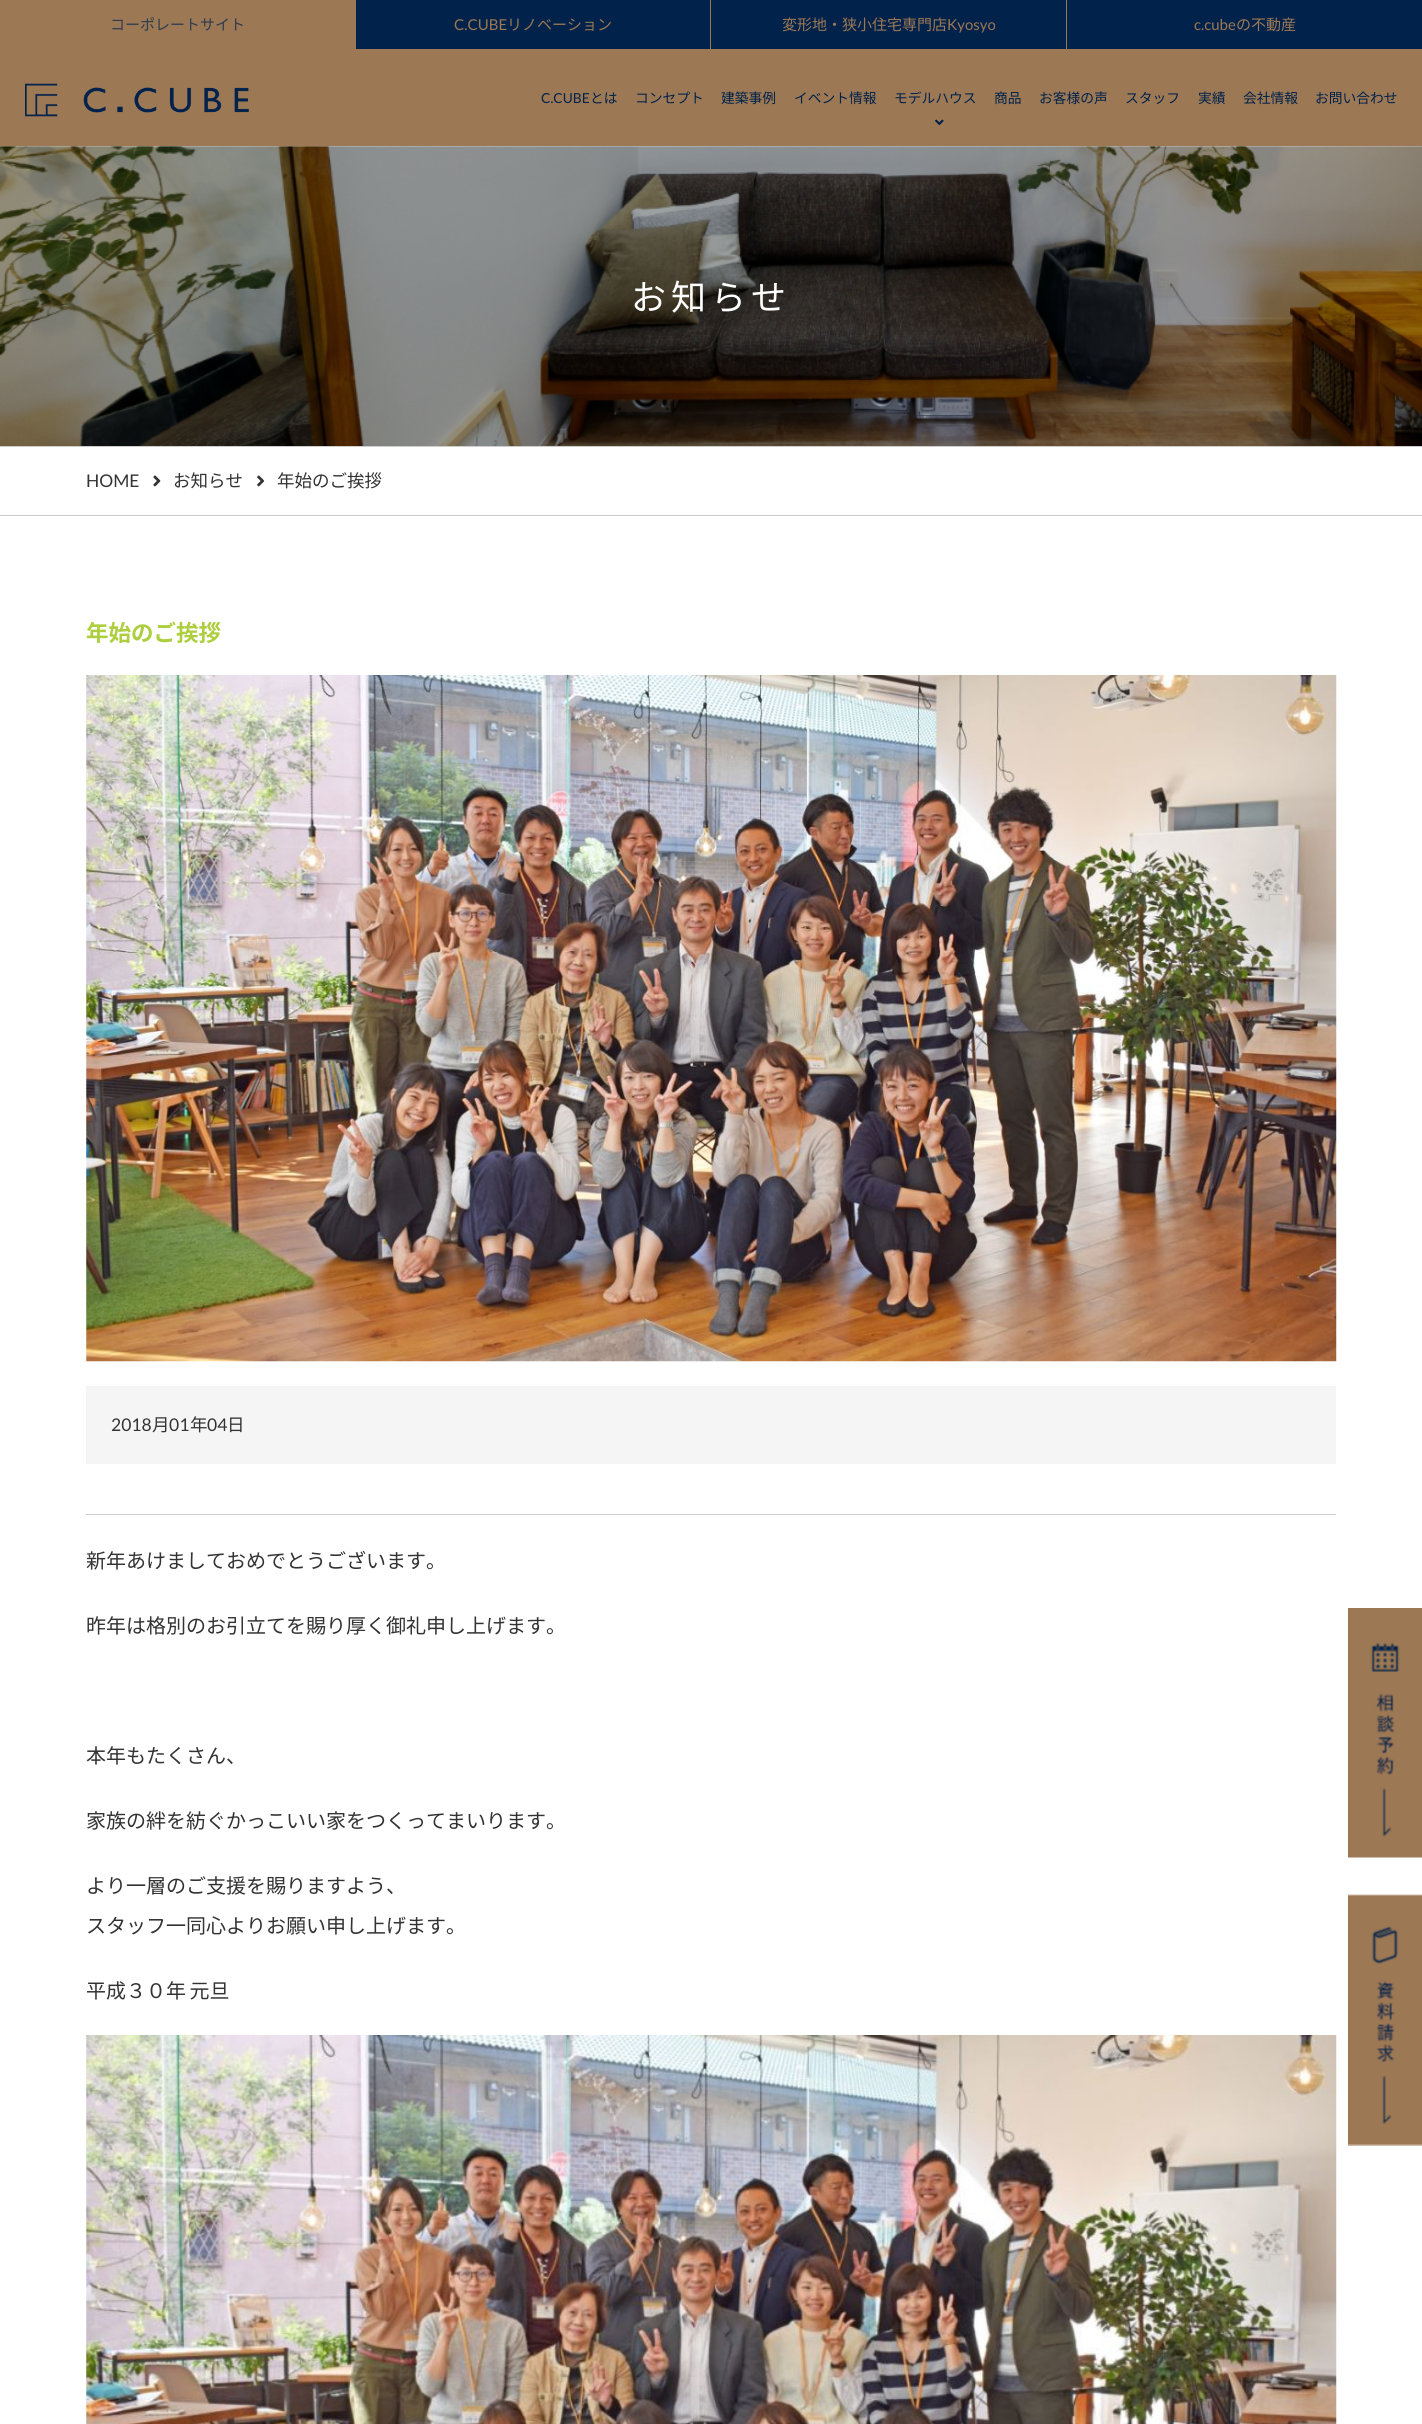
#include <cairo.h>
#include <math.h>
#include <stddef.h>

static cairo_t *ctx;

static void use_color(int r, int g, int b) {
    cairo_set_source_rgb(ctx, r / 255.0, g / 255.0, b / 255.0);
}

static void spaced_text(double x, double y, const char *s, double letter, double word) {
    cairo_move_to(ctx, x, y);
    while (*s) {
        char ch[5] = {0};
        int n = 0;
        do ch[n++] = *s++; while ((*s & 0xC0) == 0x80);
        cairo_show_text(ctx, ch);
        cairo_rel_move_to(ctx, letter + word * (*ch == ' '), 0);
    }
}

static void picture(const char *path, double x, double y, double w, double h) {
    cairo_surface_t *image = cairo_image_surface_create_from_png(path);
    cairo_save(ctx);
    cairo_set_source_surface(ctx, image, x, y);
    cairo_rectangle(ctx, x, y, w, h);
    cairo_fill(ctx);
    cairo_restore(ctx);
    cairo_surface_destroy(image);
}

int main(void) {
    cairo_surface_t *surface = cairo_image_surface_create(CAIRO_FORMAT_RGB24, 1422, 2424);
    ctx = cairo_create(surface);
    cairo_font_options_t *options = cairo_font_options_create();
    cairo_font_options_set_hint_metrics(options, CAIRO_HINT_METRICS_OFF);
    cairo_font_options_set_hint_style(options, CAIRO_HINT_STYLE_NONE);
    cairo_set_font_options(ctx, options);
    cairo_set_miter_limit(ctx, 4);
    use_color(255, 255, 255);
    cairo_paint(ctx);
    use_color(156, 120, 84);
    cairo_rectangle(ctx, 0, 49, 1422, 97);
    cairo_fill(ctx);
    use_color(0, 34, 75);
    cairo_rectangle(ctx, 356, 0, 1066, 49);
    cairo_fill(ctx);
    use_color(156, 120, 84);
    cairo_rectangle(ctx, 0, 0, 356, 49);
    cairo_fill(ctx);
    cairo_select_font_face(ctx, "Noto Sans JP", CAIRO_FONT_SLANT_NORMAL, CAIRO_FONT_WEIGHT_NORMAL);
    cairo_set_font_size(ctx, 15);
    use_color(47, 60, 78);
    cairo_move_to(ctx, 110, 30);
    cairo_show_text(ctx, "コーポレートサイト");
    use_color(156, 120, 84);
    cairo_rectangle(ctx, 710, 0, 1, 49);
    cairo_fill(ctx);
    cairo_select_font_face(ctx, "Lato", CAIRO_FONT_SLANT_NORMAL, CAIRO_FONT_WEIGHT_NORMAL);
    cairo_move_to(ctx, 454, 30);
    cairo_show_text(ctx, "C.CUBE");
    cairo_select_font_face(ctx, "Noto Sans JP", CAIRO_FONT_SLANT_NORMAL, CAIRO_FONT_WEIGHT_NORMAL);
    cairo_move_to(ctx, 507, 30);
    cairo_show_text(ctx, "リノベーション");
    cairo_rectangle(ctx, 1066, 0, 1, 49);
    cairo_fill(ctx);
    cairo_move_to(ctx, 782, 30);
    cairo_show_text(ctx, "変形地・狭小住宅専門店");
    cairo_select_font_face(ctx, "Lato", CAIRO_FONT_SLANT_NORMAL, CAIRO_FONT_WEIGHT_NORMAL);
    cairo_move_to(ctx, 947, 30);
    cairo_show_text(ctx, "Kyosyo");
    cairo_move_to(ctx, 1194, 30);
    cairo_show_text(ctx, "c.cube");
    cairo_select_font_face(ctx, "Noto Sans JP", CAIRO_FONT_SLANT_NORMAL, CAIRO_FONT_WEIGHT_NORMAL);
    cairo_move_to(ctx, 1236, 30);
    cairo_show_text(ctx, "の不動産");
    picture("img1.png", 25, 83, 224, 34);
    cairo_select_font_face(ctx, "Lato", CAIRO_FONT_SLANT_NORMAL, CAIRO_FONT_WEIGHT_NORMAL);
    cairo_set_font_size(ctx, 13.75);
    use_color(0, 34, 75);
    cairo_move_to(ctx, 541, 103);
    cairo_show_text(ctx, "C.CUBE");
    cairo_select_font_face(ctx, "Noto Sans JP", CAIRO_FONT_SLANT_NORMAL, CAIRO_FONT_WEIGHT_NORMAL);
    cairo_move_to(ctx, 590, 103);
    cairo_show_text(ctx, "とは");
    cairo_move_to(ctx, 635, 103);
    cairo_show_text(ctx, "コンセプト");
    cairo_move_to(ctx, 721, 103);
    cairo_show_text(ctx, "建築事例");
    cairo_move_to(ctx, 794, 103);
    cairo_show_text(ctx, "イベント情報");
    cairo_move_to(ctx, 894, 103);
    cairo_show_text(ctx, "モデルハウス");
    picture("img2.png", 935, 119, 9, 7);
    cairo_move_to(ctx, 994, 103);
    cairo_show_text(ctx, "商品");
    cairo_move_to(ctx, 1039, 103);
    cairo_show_text(ctx, "お客様の声");
    cairo_move_to(ctx, 1125, 103);
    cairo_show_text(ctx, "スタッフ");
    cairo_move_to(ctx, 1198, 103);
    cairo_show_text(ctx, "実績");
    cairo_move_to(ctx, 1243, 103);
    cairo_show_text(ctx, "会社情報");
    cairo_move_to(ctx, 1315, 103);
    cairo_show_text(ctx, "お問い合わせ");
    picture("img3.png", 0, 146, 1422, 300);
    cairo_set_font_size(ctx, 35);
    use_color(255, 255, 255);
    spaced_text(631, 310, "お知らせ", 5, 0);
    use_color(204, 204, 204);
    cairo_rectangle(ctx, 0, 446, 1422, 1);
    cairo_fill(ctx);
    cairo_rectangle(ctx, 0, 515, 1422, 1);
    cairo_fill(ctx);
    cairo_select_font_face(ctx, "Lato", CAIRO_FONT_SLANT_NORMAL, CAIRO_FONT_WEIGHT_NORMAL);
    cairo_set_font_size(ctx, 17.5);
    use_color(51, 51, 51);
    cairo_move_to(ctx, 86, 487);
    cairo_show_text(ctx, "HOME");
    picture("img4.png", 153, 475, 8, 12);
    cairo_select_font_face(ctx, "Noto Sans JP", CAIRO_FONT_SLANT_NORMAL, CAIRO_FONT_WEIGHT_NORMAL);
    cairo_move_to(ctx, 173, 487);
    cairo_show_text(ctx, "お知らせ");
    picture("img5.png", 257, 475, 8, 12);
    cairo_move_to(ctx, 277, 487);
    cairo_show_text(ctx, "年始のご挨拶");
    cairo_select_font_face(ctx, "Noto Sans JP", CAIRO_FONT_SLANT_NORMAL, CAIRO_FONT_WEIGHT_BOLD);
    cairo_set_font_size(ctx, 22.5);
    use_color(173, 206, 62);
    cairo_move_to(ctx, 86, 641);
    cairo_show_text(ctx, "年始のご挨拶");
    picture("img6.png", 86, 675, 1251, 687);
    use_color(245, 245, 245);
    cairo_rectangle(ctx, 86, 1386, 1250, 78);
    cairo_fill(ctx);
    cairo_select_font_face(ctx, "Lato", CAIRO_FONT_SLANT_NORMAL, CAIRO_FONT_WEIGHT_NORMAL);
    cairo_set_font_size(ctx, 17.5);
    use_color(51, 51, 51);
    cairo_move_to(ctx, 111, 1431);
    cairo_show_text(ctx, "2018");
    cairo_select_font_face(ctx, "Noto Sans JP", CAIRO_FONT_SLANT_NORMAL, CAIRO_FONT_WEIGHT_NORMAL);
    cairo_move_to(ctx, 152, 1431);
    cairo_show_text(ctx, "月");
    cairo_select_font_face(ctx, "Lato", CAIRO_FONT_SLANT_NORMAL, CAIRO_FONT_WEIGHT_NORMAL);
    cairo_move_to(ctx, 169, 1431);
    cairo_show_text(ctx, "01");
    cairo_select_font_face(ctx, "Noto Sans JP", CAIRO_FONT_SLANT_NORMAL, CAIRO_FONT_WEIGHT_NORMAL);
    cairo_move_to(ctx, 190, 1431);
    cairo_show_text(ctx, "年");
    cairo_select_font_face(ctx, "Lato", CAIRO_FONT_SLANT_NORMAL, CAIRO_FONT_WEIGHT_NORMAL);
    cairo_move_to(ctx, 207, 1431);
    cairo_show_text(ctx, "04");
    cairo_select_font_face(ctx, "Noto Sans JP", CAIRO_FONT_SLANT_NORMAL, CAIRO_FONT_WEIGHT_NORMAL);
    cairo_move_to(ctx, 227, 1431);
    cairo_show_text(ctx, "日");
    use_color(204, 204, 204);
    cairo_rectangle(ctx, 86, 1514, 1250, 1);
    cairo_fill(ctx);
    cairo_set_font_size(ctx, 20);
    use_color(51, 51, 51);
    cairo_move_to(ctx, 86, 1568);
    cairo_show_text(ctx, "新年あけましておめでとうございます。");
    cairo_move_to(ctx, 86, 1633);
    cairo_show_text(ctx, "昨年は格別のお引立てを賜り厚く御礼申し上げます。");
    cairo_move_to(ctx, 86, 1763);
    cairo_show_text(ctx, "本年もたくさん、");
    cairo_move_to(ctx, 86, 1828);
    cairo_show_text(ctx, "家族の絆を紡ぐかっこいい家をつくってまいります。");
    cairo_move_to(ctx, 86, 1893);
    cairo_show_text(ctx, "より一層のご支援を賜りますよう、");
    cairo_move_to(ctx, 86, 1933);
    cairo_show_text(ctx, "スタッフ一同心よりお願い申し上げます。");
    spaced_text(86, 1998, "平成３０年 元旦", 0, -1);
    picture("img7.png", 86, 2035, 1251, 389);
    picture("img8.png", 1348, 1608, 74, 250);
    picture("img9.png", 1348, 1894, 74, 252);
    cairo_surface_write_to_png(surface, "result.png");
    cairo_font_options_destroy(options);
    cairo_destroy(ctx);
    cairo_surface_destroy(surface);
    return 0;
}
